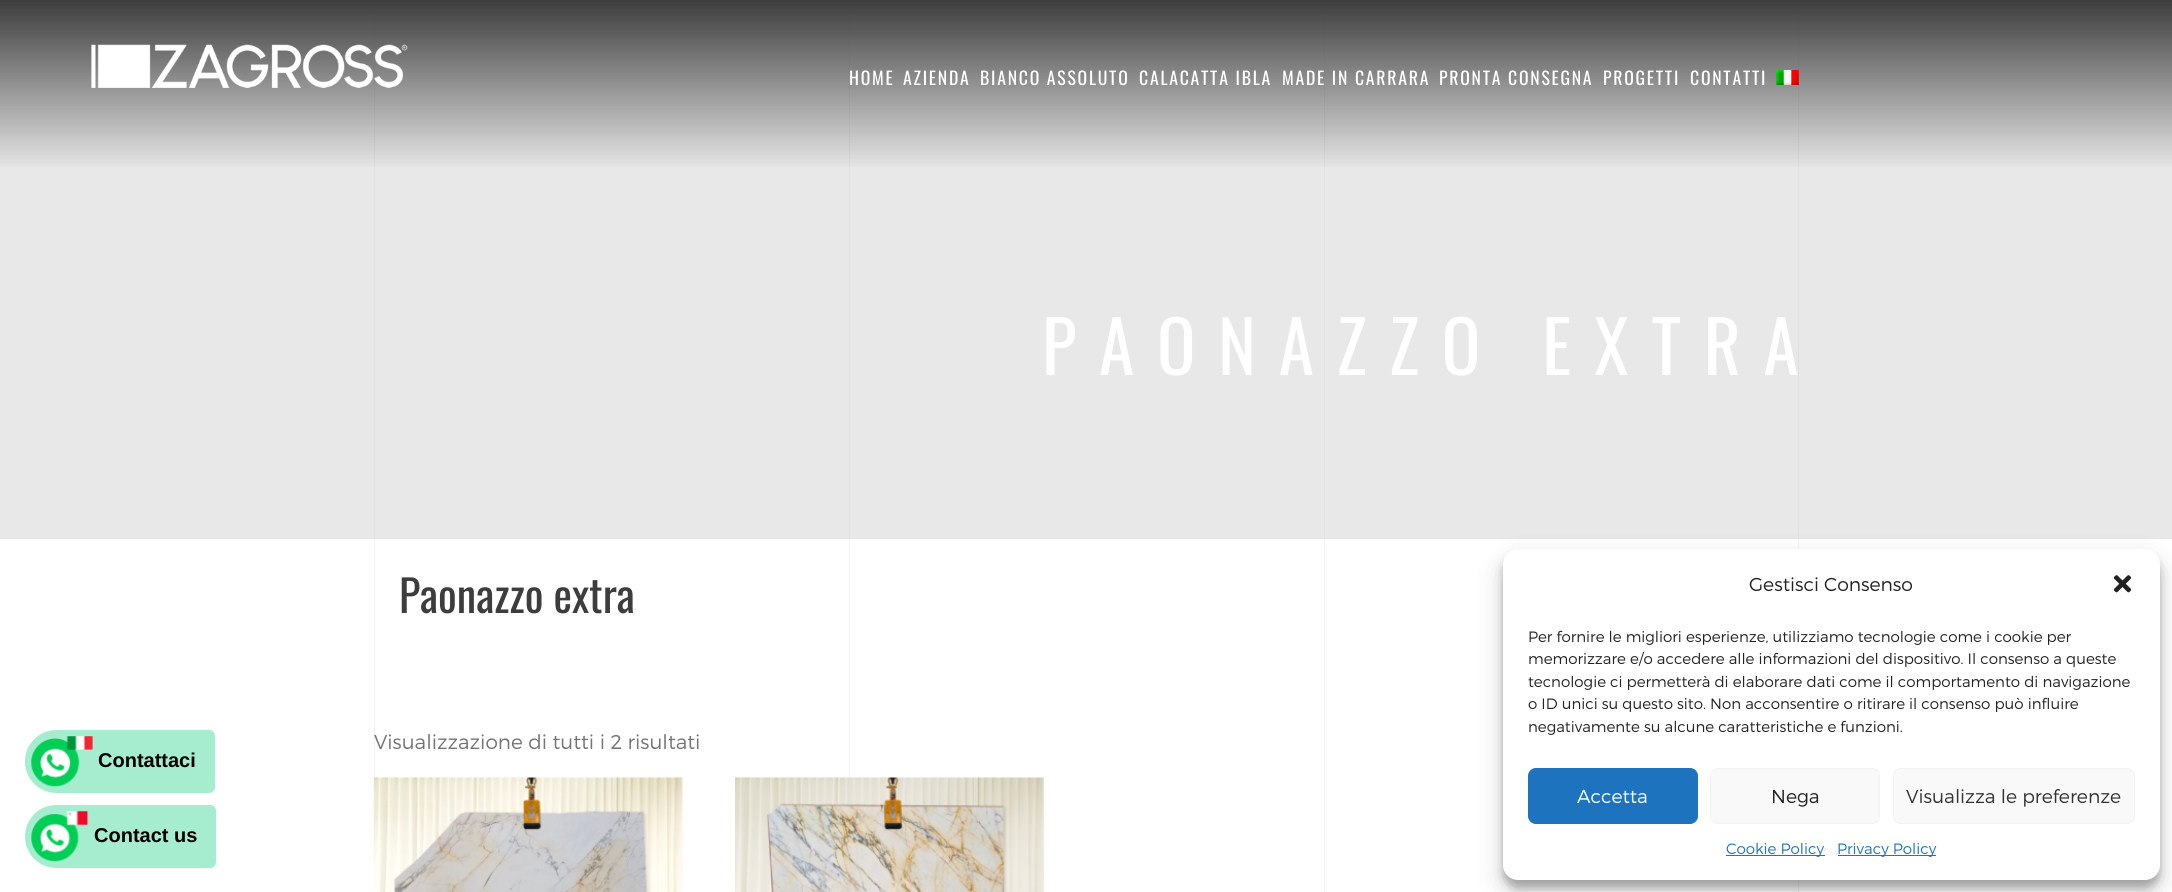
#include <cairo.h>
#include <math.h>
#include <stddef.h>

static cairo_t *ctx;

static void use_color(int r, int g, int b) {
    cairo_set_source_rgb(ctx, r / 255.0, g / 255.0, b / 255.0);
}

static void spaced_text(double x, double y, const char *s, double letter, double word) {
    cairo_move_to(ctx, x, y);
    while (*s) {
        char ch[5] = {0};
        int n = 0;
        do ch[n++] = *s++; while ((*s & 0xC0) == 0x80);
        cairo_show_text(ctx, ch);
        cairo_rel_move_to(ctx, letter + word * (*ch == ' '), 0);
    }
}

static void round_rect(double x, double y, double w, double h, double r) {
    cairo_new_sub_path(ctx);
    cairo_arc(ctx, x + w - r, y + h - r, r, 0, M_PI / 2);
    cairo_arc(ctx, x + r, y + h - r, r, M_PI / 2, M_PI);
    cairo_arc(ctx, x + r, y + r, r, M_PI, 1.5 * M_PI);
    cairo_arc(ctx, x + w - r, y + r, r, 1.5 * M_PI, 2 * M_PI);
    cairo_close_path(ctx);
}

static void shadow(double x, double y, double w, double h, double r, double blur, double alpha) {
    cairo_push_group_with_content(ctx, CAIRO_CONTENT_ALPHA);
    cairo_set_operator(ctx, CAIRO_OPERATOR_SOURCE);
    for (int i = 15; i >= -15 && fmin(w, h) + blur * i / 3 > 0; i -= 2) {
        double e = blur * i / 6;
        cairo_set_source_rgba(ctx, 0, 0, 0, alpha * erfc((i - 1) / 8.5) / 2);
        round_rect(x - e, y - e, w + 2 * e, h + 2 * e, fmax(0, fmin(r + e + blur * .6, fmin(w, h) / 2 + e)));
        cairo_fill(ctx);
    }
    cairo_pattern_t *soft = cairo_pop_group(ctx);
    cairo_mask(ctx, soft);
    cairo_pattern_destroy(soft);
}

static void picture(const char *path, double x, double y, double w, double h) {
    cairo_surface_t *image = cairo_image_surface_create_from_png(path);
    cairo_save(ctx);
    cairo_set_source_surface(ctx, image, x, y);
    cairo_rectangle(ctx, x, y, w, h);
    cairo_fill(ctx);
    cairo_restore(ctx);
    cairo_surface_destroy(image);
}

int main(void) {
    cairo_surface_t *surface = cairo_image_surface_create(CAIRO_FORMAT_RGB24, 2172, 892);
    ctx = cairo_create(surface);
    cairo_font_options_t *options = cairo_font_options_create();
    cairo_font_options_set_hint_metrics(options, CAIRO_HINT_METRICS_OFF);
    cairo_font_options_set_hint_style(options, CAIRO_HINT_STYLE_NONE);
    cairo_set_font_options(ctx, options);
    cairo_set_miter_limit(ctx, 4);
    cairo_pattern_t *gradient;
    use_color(255, 255, 255);
    cairo_paint(ctx);
    use_color(232, 232, 232);
    cairo_rectangle(ctx, 0, 1, 2172, 538);
    cairo_fill(ctx);
    use_color(224, 224, 224);
    cairo_rectangle(ctx, 374, 0, 1, 539);
    cairo_fill(ctx);
    cairo_rectangle(ctx, 849, 0, 1, 539);
    cairo_fill(ctx);
    cairo_rectangle(ctx, 1324, 0, 1, 539);
    cairo_fill(ctx);
    cairo_rectangle(ctx, 1798, 0, 1, 539);
    cairo_fill(ctx);
    gradient = cairo_pattern_create_linear(1086, 0, 1086, 171);
    cairo_pattern_add_color_stop_rgba(gradient, 0, 0.239, 0.239, 0.239, 1);
    cairo_pattern_add_color_stop_rgba(gradient, 1, 0.239, 0.239, 0.239, 0);
    cairo_set_source(ctx, gradient);
    cairo_pattern_destroy(gradient);
    cairo_rectangle(ctx, 0, 0, 2172, 167);
    cairo_fill(ctx);
    picture("img1.png", 91, 44, 317, 44);
    cairo_select_font_face(ctx, "Oswald", CAIRO_FONT_SLANT_NORMAL, CAIRO_FONT_WEIGHT_NORMAL);
    cairo_set_font_size(ctx, 17.75);
    use_color(255, 255, 255);
    spaced_text(849, 85, "HOME", 1.75, 0);
    spaced_text(903, 85, "AZIENDA", 1.75, 0);
    spaced_text(980, 85, "BIANCO ASSOLUTO", 1.75, 0);
    spaced_text(1139, 85, "CALACATTA IBLA", 1.75, 0);
    spaced_text(1282, 85, "MADE IN CARRARA", 1.75, 0);
    spaced_text(1439, 85, "PRONTA CONSEGNA", 1.75, 0);
    spaced_text(1603, 85, "PROGETTI", 1.75, 0);
    spaced_text(1690, 85, "CONTATTI", 1.75, 0);
    picture("img2.png", 1776, 70, 23, 15);
    use_color(166, 237, 208);
    cairo_new_path(ctx);
    cairo_move_to(ctx, 56.5, 730);
    cairo_line_to(ctx, 209, 730);
    cairo_curve_to(ctx, 212.5, 730, 215, 732.5, 215, 736);
    cairo_line_to(ctx, 215, 787);
    cairo_curve_to(ctx, 215, 790.5, 212.5, 793, 209, 793);
    cairo_line_to(ctx, 56.5, 793);
    cairo_curve_to(ctx, 39, 793, 25, 779, 25, 761.5);
    cairo_curve_to(ctx, 25, 744, 39, 730, 56.5, 730);
    cairo_close_path(ctx);
    cairo_fill(ctx);
    picture("img3.png", 31, 736, 62, 51);
    cairo_select_font_face(ctx, "Liberation Sans", CAIRO_FONT_SLANT_NORMAL, CAIRO_FONT_WEIGHT_BOLD);
    cairo_set_font_size(ctx, 20);
    use_color(0, 0, 0);
    cairo_move_to(ctx, 98, 767);
    cairo_show_text(ctx, "Contattaci");
    cairo_select_font_face(ctx, "Oswald", CAIRO_FONT_SLANT_NORMAL, CAIRO_FONT_WEIGHT_NORMAL);
    cairo_set_font_size(ctx, 71.4);
    use_color(255, 255, 255);
    spaced_text(1042, 375, "PAONAZZO EXTRA", 22.8, 0);
    use_color(244, 244, 244);
    cairo_rectangle(ctx, 374, 539, 1, 239);
    cairo_fill(ctx);
    cairo_rectangle(ctx, 849, 539, 1, 239);
    cairo_fill(ctx);
    cairo_rectangle(ctx, 1324, 539, 1, 353);
    cairo_fill(ctx);
    cairo_rectangle(ctx, 1798, 539, 1, 353);
    cairo_fill(ctx);
    cairo_set_font_size(ctx, 44);
    use_color(61, 61, 61);
    cairo_move_to(ctx, 399, 613);
    cairo_show_text(ctx, "Paonazzo extra");
    cairo_select_font_face(ctx, "Montserrat Light", CAIRO_FONT_SLANT_NORMAL, CAIRO_FONT_WEIGHT_NORMAL);
    cairo_set_font_size(ctx, 20);
    use_color(116, 116, 116);
    cairo_move_to(ctx, 374, 749);
    cairo_show_text(ctx, "Visualizzazione di tutti i 2 risultati");
    picture("img4.png", 373, 777, 310, 115);
    picture("img5.png", 735, 777, 309, 115);
    use_color(0, 0, 0);
    shadow(1503, 556, 657, 332, 15, 4, 0.23);
    shadow(1503, 561, 657, 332, 15, 12.5, 0.19);
    use_color(255, 255, 255);
    round_rect(1503, 549, 657, 331, 15);
    cairo_fill(ctx);
    cairo_set_font_size(ctx, 18.75);
    use_color(34, 34, 34);
    cairo_move_to(ctx, 1749, 591);
    cairo_show_text(ctx, "Gestisci Consenso");
    picture("img6.png", 2113, 575, 19, 18);
    cairo_set_font_size(ctx, 15);
    cairo_move_to(ctx, 1528, 642);
    cairo_show_text(ctx, "Per fornire le migliori esperienze, utilizziamo tecnologie come i cookie per");
    cairo_move_to(ctx, 1528, 664);
    cairo_show_text(ctx, "memorizzare e/o accedere alle informazioni del dispositivo. Il consenso a queste");
    cairo_move_to(ctx, 1528, 687);
    cairo_show_text(ctx, "tecnologie ci permetterà di elaborare dati come il comportamento di navigazione");
    cairo_move_to(ctx, 1528, 709);
    cairo_show_text(ctx, "o ID unici su questo sito. Non acconsentire o ritirare il consenso può influire");
    cairo_move_to(ctx, 1528, 732);
    cairo_show_text(ctx, "negativamente su alcune caratteristiche e funzioni.");
    use_color(30, 115, 190);
    round_rect(1528.5, 768.5, 169, 55, 7.5);
    cairo_fill_preserve(ctx);
    cairo_set_line_width(ctx, 1);
    cairo_stroke(ctx);
    cairo_set_font_size(ctx, 18.75);
    use_color(255, 255, 255);
    cairo_move_to(ctx, 1577, 803);
    cairo_show_text(ctx, "Accetta");
    use_color(249, 249, 249);
    round_rect(1710.5, 768.5, 169, 55, 7.5);
    cairo_fill_preserve(ctx);
    use_color(242, 242, 242);
    cairo_stroke(ctx);
    use_color(34, 34, 34);
    cairo_move_to(ctx, 1771, 803);
    cairo_show_text(ctx, "Nega");
    use_color(249, 249, 249);
    round_rect(1893.5, 768.5, 241, 55, 7.5);
    cairo_fill_preserve(ctx);
    use_color(242, 242, 242);
    cairo_stroke(ctx);
    use_color(51, 51, 51);
    cairo_move_to(ctx, 1906, 803);
    cairo_show_text(ctx, "Visualizza le preferenze");
    use_color(30, 115, 190);
    cairo_rectangle(ctx, 1726, 855, 99, 1);
    cairo_fill(ctx);
    cairo_set_font_size(ctx, 15);
    cairo_move_to(ctx, 1726, 854);
    cairo_show_text(ctx, "Cookie Policy");
    cairo_rectangle(ctx, 1838, 855, 98, 1);
    cairo_fill(ctx);
    cairo_move_to(ctx, 1837, 854);
    cairo_show_text(ctx, "Privacy Policy");
    use_color(166, 237, 208);
    cairo_new_path(ctx);
    cairo_move_to(ctx, 56.5, 805);
    cairo_line_to(ctx, 210, 805);
    cairo_curve_to(ctx, 213.5, 805, 216, 807.5, 216, 811);
    cairo_line_to(ctx, 216, 862);
    cairo_curve_to(ctx, 216, 865.5, 213.5, 868, 210, 868);
    cairo_line_to(ctx, 56.5, 868);
    cairo_curve_to(ctx, 39, 868, 25, 854, 25, 836.5);
    cairo_curve_to(ctx, 25, 819, 39, 805, 56.5, 805);
    cairo_close_path(ctx);
    cairo_fill(ctx);
    picture("img7.png", 31, 811, 58, 51);
    cairo_select_font_face(ctx, "Liberation Sans", CAIRO_FONT_SLANT_NORMAL, CAIRO_FONT_WEIGHT_BOLD);
    cairo_set_font_size(ctx, 20);
    use_color(0, 0, 0);
    cairo_move_to(ctx, 94, 842);
    cairo_show_text(ctx, "Contact us");
    cairo_surface_write_to_png(surface, "result.png");
    cairo_font_options_destroy(options);
    cairo_destroy(ctx);
    cairo_surface_destroy(surface);
    return 0;
}
